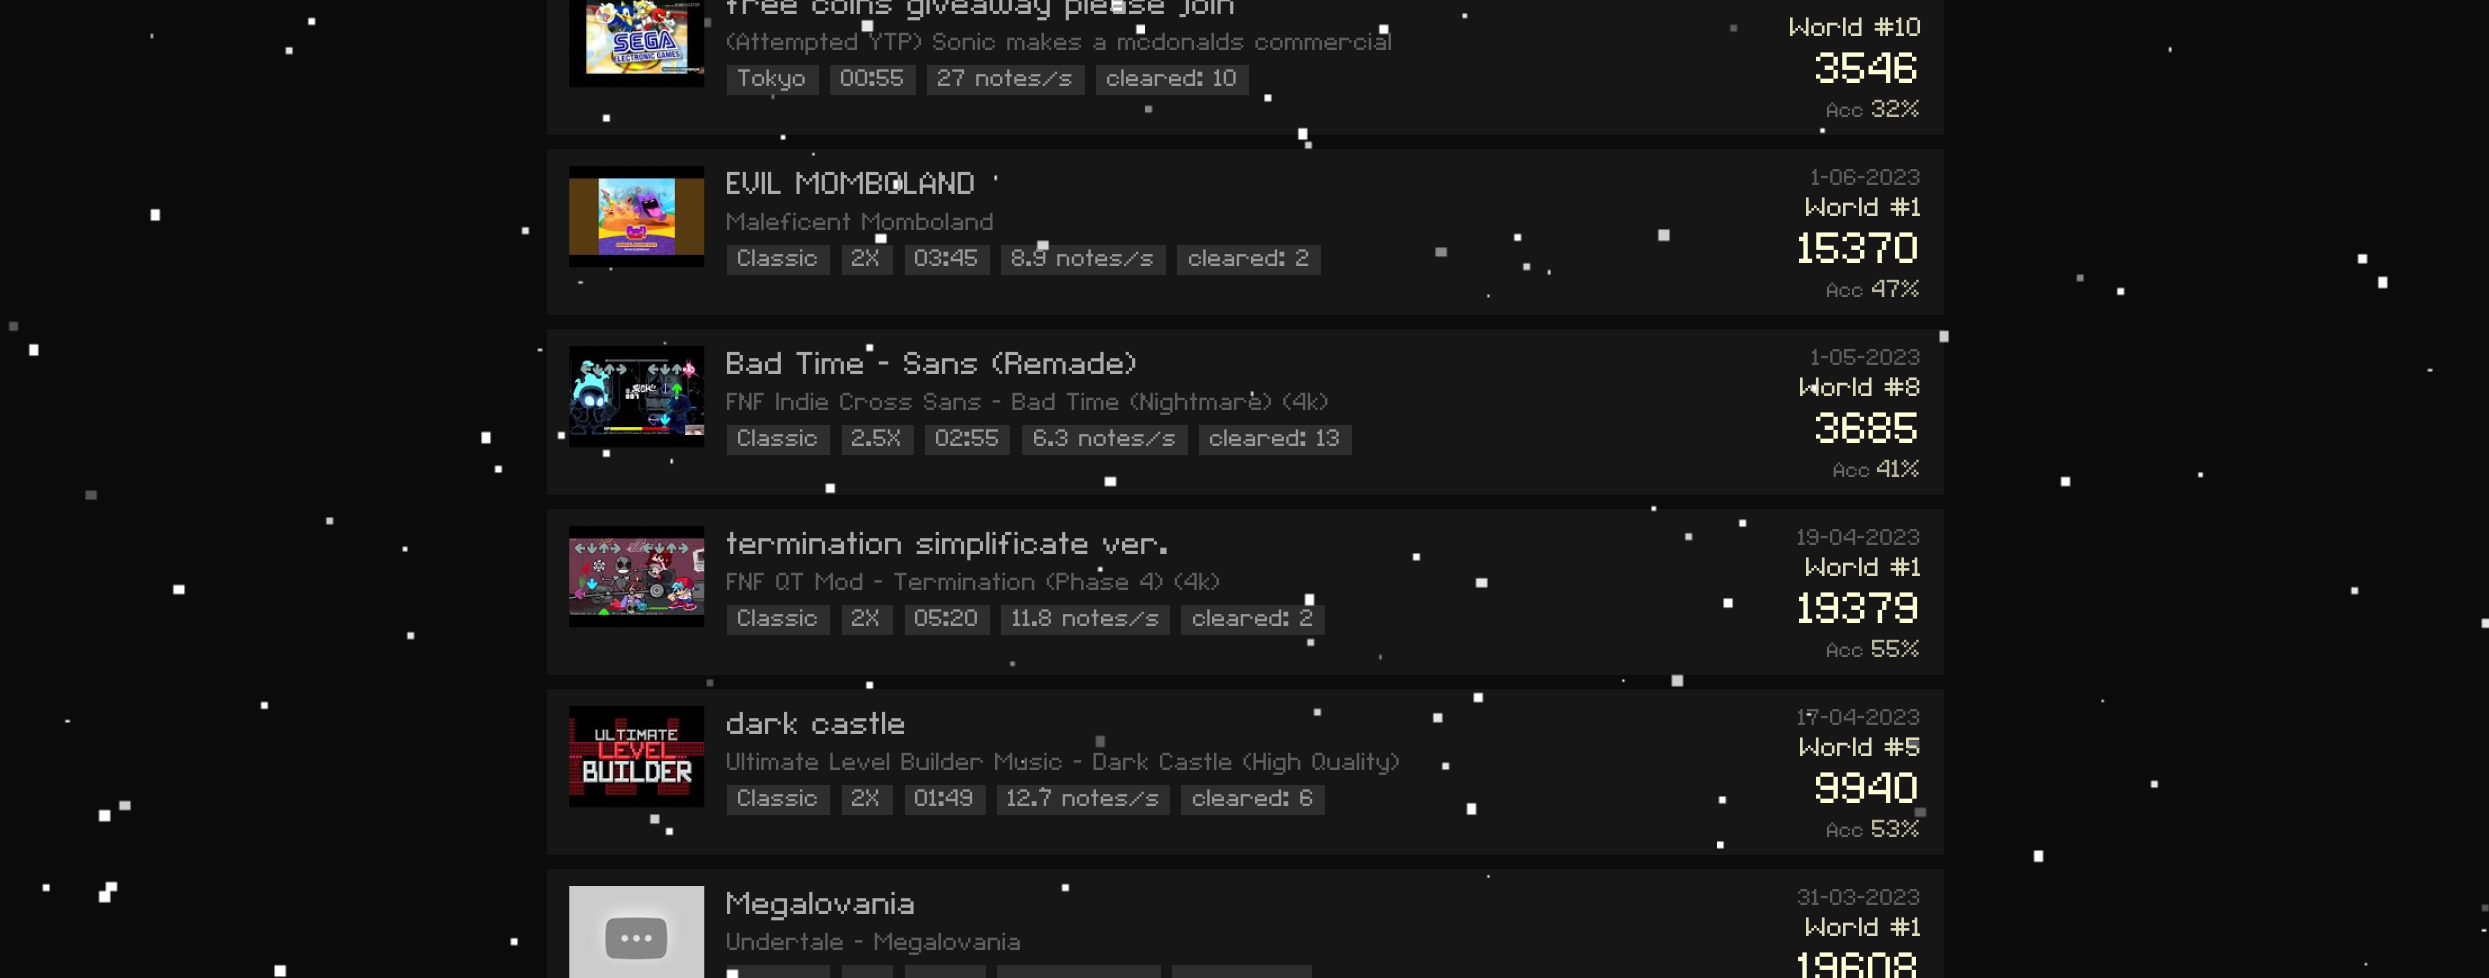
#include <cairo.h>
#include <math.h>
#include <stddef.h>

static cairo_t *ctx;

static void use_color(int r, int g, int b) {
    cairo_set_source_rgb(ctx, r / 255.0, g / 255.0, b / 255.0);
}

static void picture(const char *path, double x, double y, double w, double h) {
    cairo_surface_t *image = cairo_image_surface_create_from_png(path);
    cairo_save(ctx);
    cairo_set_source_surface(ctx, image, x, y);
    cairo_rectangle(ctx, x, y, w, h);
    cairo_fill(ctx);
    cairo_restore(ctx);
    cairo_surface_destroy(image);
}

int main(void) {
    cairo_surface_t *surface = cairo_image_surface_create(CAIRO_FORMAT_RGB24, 2489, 978);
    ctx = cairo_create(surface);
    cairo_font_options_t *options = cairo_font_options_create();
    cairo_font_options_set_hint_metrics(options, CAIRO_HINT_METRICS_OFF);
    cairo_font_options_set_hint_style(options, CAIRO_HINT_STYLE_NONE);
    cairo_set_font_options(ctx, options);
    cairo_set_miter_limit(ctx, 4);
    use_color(255, 255, 255);
    cairo_paint(ctx);
    picture("img1.png", 0, 0, 2489, 978);
    cairo_set_source_rgba(ctx, 1, 1, 1, 0.05);
    cairo_rectangle(ctx, 547, 0, 1397, 135);
    cairo_fill(ctx);
    picture("img2.png", 569, 0, 136, 88);
    cairo_save(ctx);
    cairo_rectangle(ctx, 727, 0, 666, 25);
    cairo_clip(ctx);
    cairo_select_font_face(ctx, "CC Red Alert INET", CAIRO_FONT_SLANT_NORMAL, CAIRO_FONT_WEIGHT_NORMAL);
    cairo_set_font_size(ctx, 40.5);
    use_color(171, 171, 171);
    cairo_move_to(ctx, 727, 14);
    cairo_show_text(ctx, "free coins giveaway please join");
    cairo_restore(ctx);
    cairo_save(ctx);
    cairo_rectangle(ctx, 727, 25, 666, 34);
    cairo_clip(ctx);
    cairo_select_font_face(ctx, "CC Red Alert INET", CAIRO_FONT_SLANT_NORMAL, CAIRO_FONT_WEIGHT_NORMAL);
    cairo_set_font_size(ctx, 31.5);
    use_color(93, 93, 93);
    cairo_move_to(ctx, 727, 50);
    cairo_show_text(ctx, "(Attempted YTP) Sonic makes a mcdonalds commercial");
    cairo_restore(ctx);
    cairo_set_source_rgba(ctx, 1, 1, 1, 0.1);
    cairo_rectangle(ctx, 727, 65, 92, 30);
    cairo_fill(ctx);
    cairo_select_font_face(ctx, "CC Red Alert INET", CAIRO_FONT_SLANT_NORMAL, CAIRO_FONT_WEIGHT_NORMAL);
    cairo_set_font_size(ctx, 30.5);
    use_color(151, 151, 151);
    cairo_move_to(ctx, 738, 86);
    cairo_show_text(ctx, "Tokyo");
    use_color(46, 46, 46);
    cairo_rectangle(ctx, 830, 65, 86, 30);
    cairo_fill(ctx);
    use_color(151, 151, 151);
    cairo_move_to(ctx, 841, 86);
    cairo_show_text(ctx, "00:55");
    use_color(46, 46, 46);
    cairo_rectangle(ctx, 927, 65, 158, 30);
    cairo_fill(ctx);
    use_color(151, 151, 151);
    cairo_move_to(ctx, 938, 86);
    cairo_show_text(ctx, "27 notes/s");
    use_color(46, 46, 46);
    cairo_rectangle(ctx, 1096, 65, 153, 30);
    cairo_fill(ctx);
    use_color(151, 151, 151);
    cairo_move_to(ctx, 1107, 86);
    cairo_show_text(ctx, "cleared: 10");
    cairo_set_font_size(ctx, 34);
    use_color(220, 220, 189);
    cairo_move_to(ctx, 1790, 36);
    cairo_show_text(ctx, "World #10");
    cairo_set_font_size(ctx, 56);
    use_color(255, 255, 218);
    cairo_move_to(ctx, 1816, 83);
    cairo_show_text(ctx, "3546");
    picture("img3.png", 1827, 102, 36, 15);
    cairo_set_font_size(ctx, 31.5);
    use_color(185, 185, 160);
    cairo_move_to(ctx, 1872, 117);
    cairo_show_text(ctx, "32%");
    cairo_set_source_rgba(ctx, 1, 1, 1, 0.05);
    cairo_rectangle(ctx, 547, 149, 1397, 166);
    cairo_fill(ctx);
    picture("img4.png", 569, 166, 136, 102);
    cairo_save(ctx);
    cairo_rectangle(ctx, 727, 155, 268, 50);
    cairo_clip(ctx);
    cairo_set_font_size(ctx, 40.5);
    use_color(171, 171, 171);
    cairo_move_to(ctx, 727, 194);
    cairo_show_text(ctx, "EVIL MOMBOLAND");
    cairo_restore(ctx);
    cairo_save(ctx);
    cairo_rectangle(ctx, 727, 205, 268, 34);
    cairo_clip(ctx);
    use_color(93, 93, 93);
    cairo_move_to(ctx, 727, 230);
    cairo_show_text(ctx, "Maleficent Momboland");
    cairo_restore(ctx);
    use_color(46, 46, 46);
    cairo_rectangle(ctx, 727, 245, 103, 30);
    cairo_fill(ctx);
    cairo_set_font_size(ctx, 30.5);
    use_color(151, 151, 151);
    cairo_move_to(ctx, 738, 266);
    cairo_show_text(ctx, "Classic");
    use_color(46, 46, 46);
    cairo_rectangle(ctx, 842, 245, 51, 30);
    cairo_fill(ctx);
    use_color(151, 151, 151);
    cairo_move_to(ctx, 852, 266);
    cairo_show_text(ctx, "2X");
    use_color(46, 46, 46);
    cairo_rectangle(ctx, 905, 245, 85, 30);
    cairo_fill(ctx);
    use_color(151, 151, 151);
    cairo_move_to(ctx, 915, 266);
    cairo_show_text(ctx, "03:45");
    cairo_set_source_rgba(ctx, 1, 1, 1, 0.1);
    cairo_rectangle(ctx, 1001, 245, 165, 30);
    cairo_fill(ctx);
    use_color(151, 151, 151);
    cairo_move_to(ctx, 1012, 266);
    cairo_show_text(ctx, "8.9 notes/s");
    use_color(46, 46, 46);
    cairo_rectangle(ctx, 1177, 245, 144, 30);
    cairo_fill(ctx);
    use_color(151, 151, 151);
    cairo_move_to(ctx, 1189, 266);
    cairo_show_text(ctx, "cleared: 2");
    cairo_set_font_size(ctx, 29.25);
    use_color(93, 93, 93);
    cairo_move_to(ctx, 1812, 185);
    cairo_show_text(ctx, "1-06-2023");
    cairo_set_font_size(ctx, 34);
    use_color(220, 220, 189);
    cairo_move_to(ctx, 1806, 216);
    cairo_show_text(ctx, "World #1");
    cairo_set_font_size(ctx, 56);
    use_color(255, 255, 218);
    cairo_move_to(ctx, 1799, 263);
    cairo_show_text(ctx, "15370");
    picture("img3.png", 1827, 282, 36, 15);
    cairo_set_font_size(ctx, 31.5);
    use_color(185, 185, 160);
    cairo_move_to(ctx, 1872, 297);
    cairo_show_text(ctx, "47%");
    cairo_set_source_rgba(ctx, 1, 1, 1, 0.05);
    cairo_rectangle(ctx, 547, 329, 1397, 166);
    cairo_fill(ctx);
    picture("img5.png", 569, 346, 136, 102);
    cairo_save(ctx);
    cairo_rectangle(ctx, 727, 335, 603, 50);
    cairo_clip(ctx);
    cairo_set_font_size(ctx, 40.5);
    use_color(171, 171, 171);
    cairo_move_to(ctx, 727, 374);
    cairo_show_text(ctx, "Bad Time - Sans (Remade)");
    cairo_restore(ctx);
    cairo_save(ctx);
    cairo_rectangle(ctx, 727, 385, 603, 34);
    cairo_clip(ctx);
    use_color(93, 93, 93);
    cairo_move_to(ctx, 727, 410);
    cairo_show_text(ctx, "FNF Indie Cross Sans - Bad Time (Nightmare) (4k)");
    cairo_restore(ctx);
    use_color(46, 46, 46);
    cairo_rectangle(ctx, 727, 425, 103, 30);
    cairo_fill(ctx);
    cairo_set_font_size(ctx, 30.5);
    use_color(151, 151, 151);
    cairo_move_to(ctx, 738, 446);
    cairo_show_text(ctx, "Classic");
    use_color(46, 46, 46);
    cairo_rectangle(ctx, 842, 425, 72, 30);
    cairo_fill(ctx);
    use_color(151, 151, 151);
    cairo_move_to(ctx, 852, 446);
    cairo_show_text(ctx, "2.5X");
    use_color(46, 46, 46);
    cairo_rectangle(ctx, 925, 425, 85, 30);
    cairo_fill(ctx);
    use_color(151, 151, 151);
    cairo_move_to(ctx, 936, 446);
    cairo_show_text(ctx, "02:55");
    use_color(46, 46, 46);
    cairo_rectangle(ctx, 1022, 425, 166, 30);
    cairo_fill(ctx);
    use_color(151, 151, 151);
    cairo_move_to(ctx, 1034, 446);
    cairo_show_text(ctx, "6.3 notes/s");
    use_color(46, 46, 46);
    cairo_rectangle(ctx, 1199, 425, 153, 30);
    cairo_fill(ctx);
    use_color(151, 151, 151);
    cairo_move_to(ctx, 1210, 446);
    cairo_show_text(ctx, "cleared: 13");
    cairo_set_font_size(ctx, 29.25);
    use_color(93, 93, 93);
    cairo_move_to(ctx, 1812, 365);
    cairo_show_text(ctx, "1-05-2023");
    cairo_set_font_size(ctx, 34);
    use_color(220, 220, 189);
    cairo_move_to(ctx, 1800, 396);
    cairo_show_text(ctx, "World #8");
    cairo_set_font_size(ctx, 56);
    use_color(255, 255, 218);
    cairo_move_to(ctx, 1816, 443);
    cairo_show_text(ctx, "3685");
    picture("img6.png", 1833, 462, 37, 15);
    cairo_set_font_size(ctx, 31.5);
    use_color(185, 185, 160);
    cairo_move_to(ctx, 1877, 477);
    cairo_show_text(ctx, "41%");
    cairo_set_source_rgba(ctx, 1, 1, 1, 0.05);
    cairo_rectangle(ctx, 547, 509, 1397, 166);
    cairo_fill(ctx);
    picture("img7.png", 569, 526, 136, 102);
    cairo_save(ctx);
    cairo_rectangle(ctx, 727, 515, 495, 50);
    cairo_clip(ctx);
    cairo_set_font_size(ctx, 40.5);
    use_color(171, 171, 171);
    cairo_move_to(ctx, 727, 554);
    cairo_show_text(ctx, "termination simplificate ver.");
    cairo_restore(ctx);
    cairo_save(ctx);
    cairo_rectangle(ctx, 727, 565, 495, 34);
    cairo_clip(ctx);
    use_color(93, 93, 93);
    cairo_move_to(ctx, 727, 590);
    cairo_show_text(ctx, "FNF QT Mod - Termination (Phase 4) (4k)");
    cairo_restore(ctx);
    use_color(46, 46, 46);
    cairo_rectangle(ctx, 727, 605, 103, 30);
    cairo_fill(ctx);
    cairo_set_font_size(ctx, 30.5);
    use_color(151, 151, 151);
    cairo_move_to(ctx, 738, 626);
    cairo_show_text(ctx, "Classic");
    use_color(46, 46, 46);
    cairo_rectangle(ctx, 842, 605, 51, 30);
    cairo_fill(ctx);
    use_color(151, 151, 151);
    cairo_move_to(ctx, 852, 626);
    cairo_show_text(ctx, "2X");
    use_color(46, 46, 46);
    cairo_rectangle(ctx, 905, 605, 85, 30);
    cairo_fill(ctx);
    use_color(151, 151, 151);
    cairo_move_to(ctx, 915, 626);
    cairo_show_text(ctx, "05:20");
    use_color(46, 46, 46);
    cairo_rectangle(ctx, 1001, 605, 169, 30);
    cairo_fill(ctx);
    use_color(151, 151, 151);
    cairo_move_to(ctx, 1013, 626);
    cairo_show_text(ctx, "11.8 notes/s");
    cairo_set_source_rgba(ctx, 1, 1, 1, 0.1);
    cairo_rectangle(ctx, 1181, 605, 144, 30);
    cairo_fill(ctx);
    use_color(151, 151, 151);
    cairo_move_to(ctx, 1193, 626);
    cairo_show_text(ctx, "cleared: 2");
    cairo_set_font_size(ctx, 29.25);
    use_color(93, 93, 93);
    cairo_move_to(ctx, 1798, 545);
    cairo_show_text(ctx, "19-04-2023");
    cairo_set_font_size(ctx, 34);
    use_color(220, 220, 189);
    cairo_move_to(ctx, 1806, 576);
    cairo_show_text(ctx, "World #1");
    cairo_set_font_size(ctx, 56);
    use_color(255, 255, 218);
    cairo_move_to(ctx, 1799, 623);
    cairo_show_text(ctx, "19379");
    picture("img3.png", 1827, 642, 36, 15);
    cairo_set_font_size(ctx, 31.5);
    use_color(185, 185, 160);
    cairo_move_to(ctx, 1872, 657);
    cairo_show_text(ctx, "55%");
    cairo_set_source_rgba(ctx, 1, 1, 1, 0.05);
    cairo_rectangle(ctx, 547, 689, 1397, 166);
    cairo_fill(ctx);
    picture("img8.png", 569, 706, 136, 102);
    cairo_save(ctx);
    cairo_rectangle(ctx, 727, 695, 675, 50);
    cairo_clip(ctx);
    cairo_set_font_size(ctx, 40.5);
    use_color(171, 171, 171);
    cairo_move_to(ctx, 727, 734);
    cairo_show_text(ctx, "dark castle");
    cairo_restore(ctx);
    cairo_save(ctx);
    cairo_rectangle(ctx, 727, 745, 675, 34);
    cairo_clip(ctx);
    use_color(93, 93, 93);
    cairo_move_to(ctx, 727, 770);
    cairo_show_text(ctx, "Ultimate Level Builder Music - Dark Castle (High Quality)");
    cairo_restore(ctx);
    use_color(46, 46, 46);
    cairo_rectangle(ctx, 727, 785, 103, 30);
    cairo_fill(ctx);
    cairo_set_font_size(ctx, 30.5);
    use_color(151, 151, 151);
    cairo_move_to(ctx, 738, 806);
    cairo_show_text(ctx, "Classic");
    use_color(46, 46, 46);
    cairo_rectangle(ctx, 842, 785, 51, 30);
    cairo_fill(ctx);
    use_color(151, 151, 151);
    cairo_move_to(ctx, 852, 806);
    cairo_show_text(ctx, "2X");
    use_color(46, 46, 46);
    cairo_rectangle(ctx, 905, 785, 81, 30);
    cairo_fill(ctx);
    use_color(151, 151, 151);
    cairo_move_to(ctx, 915, 806);
    cairo_show_text(ctx, "01:49");
    cairo_set_source_rgba(ctx, 1, 1, 1, 0.1);
    cairo_rectangle(ctx, 997, 785, 173, 30);
    cairo_fill(ctx);
    use_color(151, 151, 151);
    cairo_move_to(ctx, 1008, 806);
    cairo_show_text(ctx, "12.7 notes/s");
    use_color(46, 46, 46);
    cairo_rectangle(ctx, 1181, 785, 144, 30);
    cairo_fill(ctx);
    use_color(151, 151, 151);
    cairo_move_to(ctx, 1193, 806);
    cairo_show_text(ctx, "cleared: 6");
    cairo_set_font_size(ctx, 29.25);
    use_color(93, 93, 93);
    cairo_move_to(ctx, 1798, 725);
    cairo_show_text(ctx, "17-04-2023");
    cairo_set_font_size(ctx, 34);
    use_color(220, 220, 189);
    cairo_move_to(ctx, 1800, 756);
    cairo_show_text(ctx, "World #5");
    cairo_set_font_size(ctx, 56);
    use_color(255, 255, 218);
    cairo_move_to(ctx, 1816, 803);
    cairo_show_text(ctx, "9940");
    picture("img3.png", 1827, 822, 36, 15);
    cairo_set_font_size(ctx, 31.5);
    use_color(185, 185, 160);
    cairo_move_to(ctx, 1872, 837);
    cairo_show_text(ctx, "53%");
    cairo_set_source_rgba(ctx, 1, 1, 1, 0.05);
    cairo_rectangle(ctx, 547, 869, 1397, 109);
    cairo_fill(ctx);
    picture("img9.png", 569, 886, 136, 92);
    cairo_save(ctx);
    cairo_rectangle(ctx, 727, 875, 295, 50);
    cairo_clip(ctx);
    cairo_set_font_size(ctx, 40.5);
    use_color(171, 171, 171);
    cairo_move_to(ctx, 727, 914);
    cairo_show_text(ctx, "Megalovania");
    cairo_restore(ctx);
    cairo_save(ctx);
    cairo_rectangle(ctx, 727, 925, 295, 34);
    cairo_clip(ctx);
    use_color(93, 93, 93);
    cairo_move_to(ctx, 727, 950);
    cairo_show_text(ctx, "Undertale - Megalovania");
    cairo_restore(ctx);
    cairo_set_source_rgba(ctx, 1, 1, 1, 0.1);
    cairo_rectangle(ctx, 727, 965, 103, 13);
    cairo_fill(ctx);
    use_color(46, 46, 46);
    cairo_rectangle(ctx, 842, 965, 51, 13);
    cairo_fill(ctx);
    cairo_rectangle(ctx, 905, 965, 81, 13);
    cairo_fill(ctx);
    cairo_rectangle(ctx, 997, 965, 164, 13);
    cairo_fill(ctx);
    cairo_rectangle(ctx, 1172, 965, 140, 13);
    cairo_fill(ctx);
    cairo_set_font_size(ctx, 29.25);
    use_color(93, 93, 93);
    cairo_move_to(ctx, 1798, 905);
    cairo_show_text(ctx, "31-03-2023");
    cairo_set_font_size(ctx, 34);
    use_color(220, 220, 189);
    cairo_move_to(ctx, 1806, 936);
    cairo_show_text(ctx, "World #1");
    cairo_set_font_size(ctx, 56);
    use_color(255, 255, 218);
    cairo_move_to(ctx, 1798, 983);
    cairo_show_text(ctx, "19608");
    cairo_surface_write_to_png(surface, "result.png");
    cairo_font_options_destroy(options);
    cairo_destroy(ctx);
    cairo_surface_destroy(surface);
    return 0;
}
